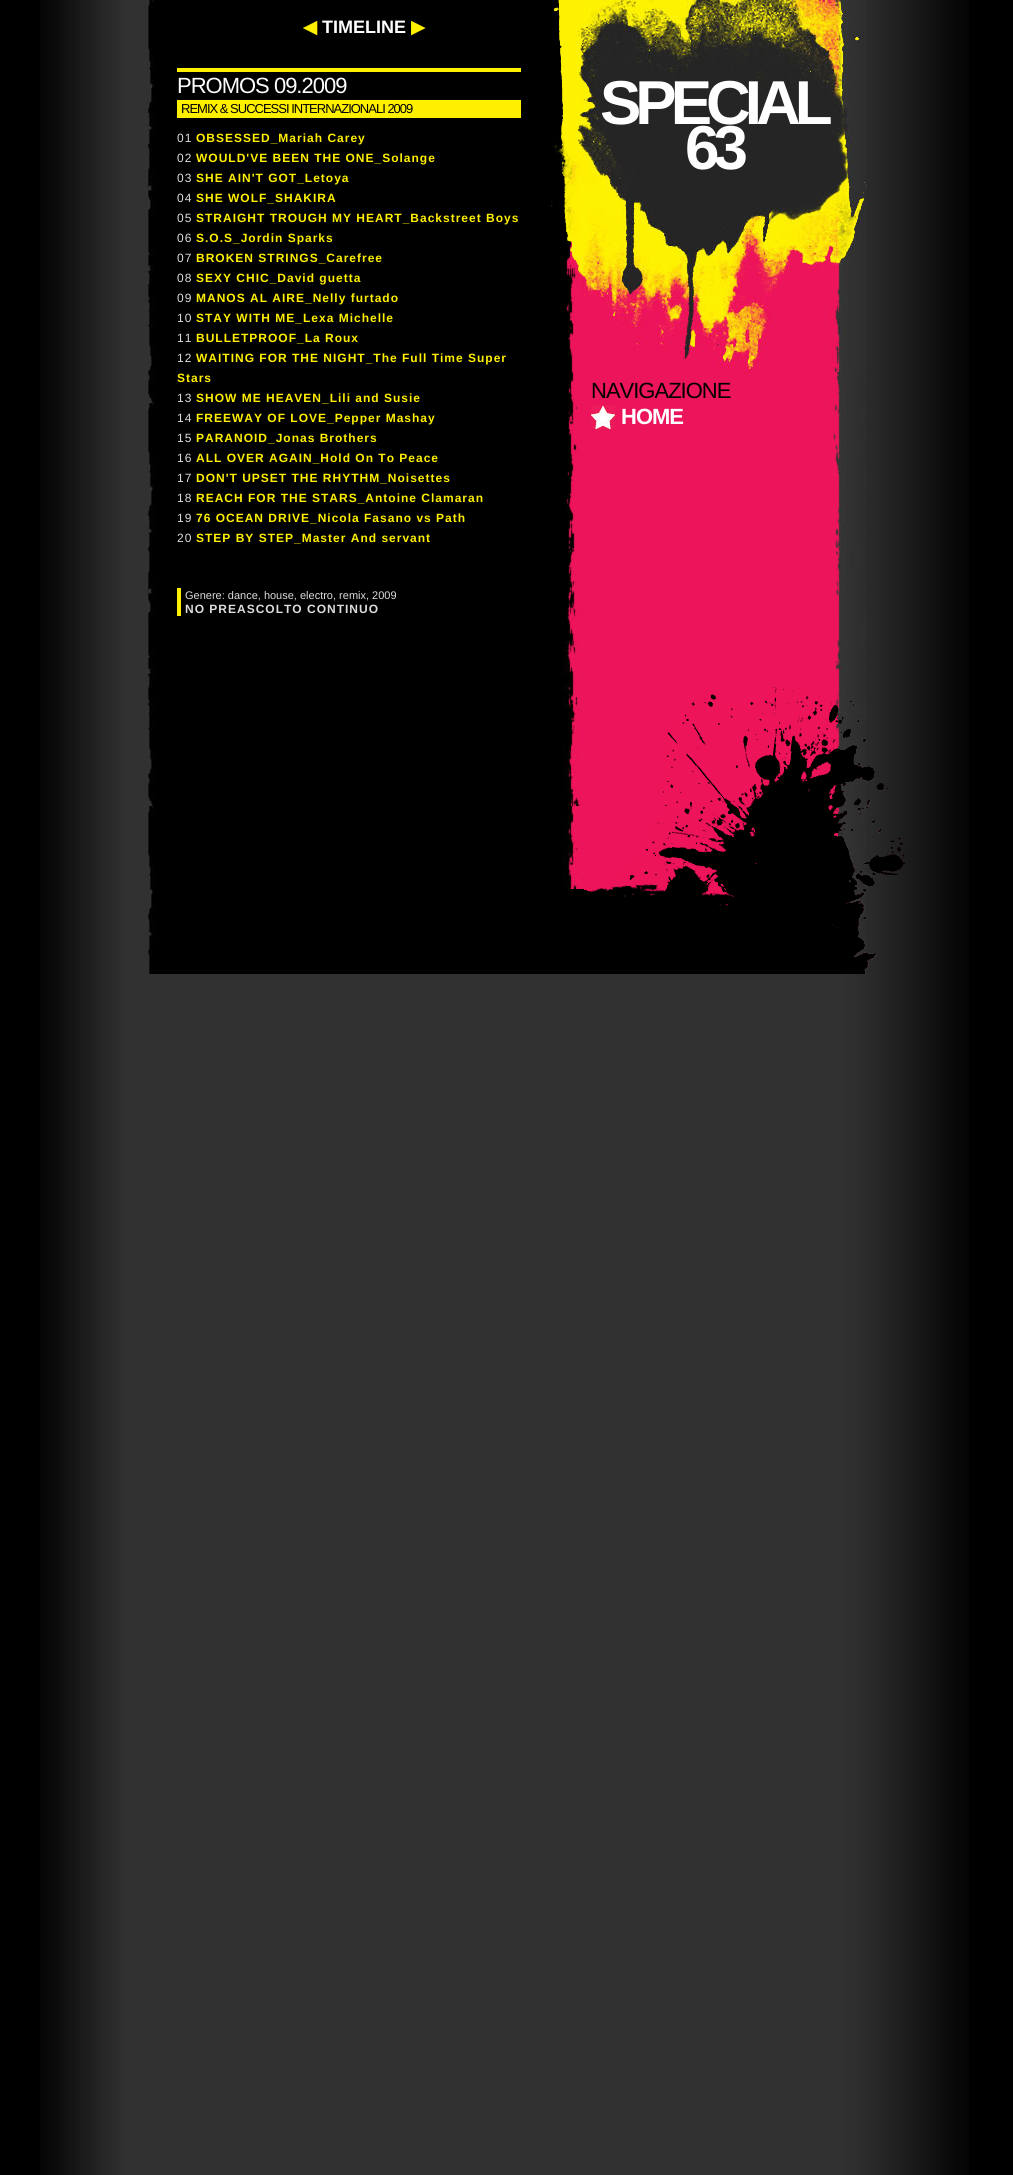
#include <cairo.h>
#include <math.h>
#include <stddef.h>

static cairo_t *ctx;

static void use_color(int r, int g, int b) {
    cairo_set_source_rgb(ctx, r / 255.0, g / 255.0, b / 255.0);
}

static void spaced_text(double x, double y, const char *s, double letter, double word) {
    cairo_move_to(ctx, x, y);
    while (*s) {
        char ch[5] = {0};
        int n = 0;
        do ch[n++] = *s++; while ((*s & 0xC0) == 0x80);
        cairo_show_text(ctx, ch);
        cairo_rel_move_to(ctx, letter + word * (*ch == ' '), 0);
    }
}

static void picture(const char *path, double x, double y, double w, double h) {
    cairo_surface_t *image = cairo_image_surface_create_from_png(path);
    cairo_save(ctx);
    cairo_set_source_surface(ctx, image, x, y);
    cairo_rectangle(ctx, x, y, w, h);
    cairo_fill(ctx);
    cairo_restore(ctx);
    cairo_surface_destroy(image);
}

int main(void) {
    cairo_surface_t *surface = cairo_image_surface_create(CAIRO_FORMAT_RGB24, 1013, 2175);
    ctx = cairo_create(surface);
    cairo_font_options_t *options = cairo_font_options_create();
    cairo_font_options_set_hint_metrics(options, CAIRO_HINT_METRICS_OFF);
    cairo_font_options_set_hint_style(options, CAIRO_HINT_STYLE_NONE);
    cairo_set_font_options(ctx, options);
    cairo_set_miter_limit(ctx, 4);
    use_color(0, 0, 0);
    cairo_paint(ctx);
    picture("img1.png", 40, 0, 929, 2175);
    picture("img2.png", 147, 0, 720, 974);
    picture("img3.png", 551, 0, 30, 641);
    cairo_select_font_face(ctx, "DejaVu Sans", CAIRO_FONT_SLANT_NORMAL, CAIRO_FONT_WEIGHT_BOLD);
    cairo_set_font_size(ctx, 18);
    use_color(255, 240, 0);
    cairo_move_to(ctx, 303, 33);
    cairo_show_text(ctx, "◀");
    cairo_select_font_face(ctx, "Liberation Sans", CAIRO_FONT_SLANT_NORMAL, CAIRO_FONT_WEIGHT_BOLD);
    use_color(255, 255, 255);
    cairo_move_to(ctx, 322, 33);
    cairo_show_text(ctx, "TIMELINE");
    cairo_select_font_face(ctx, "DejaVu Sans", CAIRO_FONT_SLANT_NORMAL, CAIRO_FONT_WEIGHT_BOLD);
    use_color(255, 240, 0);
    cairo_move_to(ctx, 411, 33);
    cairo_show_text(ctx, "▶");
    cairo_rectangle(ctx, 177, 68, 344, 4);
    cairo_fill(ctx);
    cairo_select_font_face(ctx, "Liberation Sans", CAIRO_FONT_SLANT_NORMAL, CAIRO_FONT_WEIGHT_NORMAL);
    cairo_set_font_size(ctx, 22);
    use_color(255, 255, 255);
    spaced_text(177, 93, "PROMOS 09.2009", -1, 0);
    use_color(255, 240, 0);
    cairo_rectangle(ctx, 177, 100, 344, 18);
    cairo_fill(ctx);
    cairo_set_font_size(ctx, 13);
    use_color(0, 0, 0);
    spaced_text(181, 113, "REMIX & SUCCESSI INTERNAZIONALI 2009", -1, 0);
    cairo_set_font_size(ctx, 12);
    use_color(221, 221, 221);
    spaced_text(177, 142, "01", 1, 0);
    cairo_select_font_face(ctx, "Liberation Sans", CAIRO_FONT_SLANT_NORMAL, CAIRO_FONT_WEIGHT_BOLD);
    use_color(255, 240, 0);
    spaced_text(196, 142, "OBSESSED_Mariah Carey", 1, 0);
    cairo_select_font_face(ctx, "Liberation Sans", CAIRO_FONT_SLANT_NORMAL, CAIRO_FONT_WEIGHT_NORMAL);
    use_color(221, 221, 221);
    spaced_text(177, 162, "02", 1, 0);
    cairo_select_font_face(ctx, "Liberation Sans", CAIRO_FONT_SLANT_NORMAL, CAIRO_FONT_WEIGHT_BOLD);
    use_color(255, 240, 0);
    spaced_text(196, 162, "WOULD'VE BEEN THE ONE_Solange", 1, 0);
    cairo_select_font_face(ctx, "Liberation Sans", CAIRO_FONT_SLANT_NORMAL, CAIRO_FONT_WEIGHT_NORMAL);
    use_color(221, 221, 221);
    spaced_text(177, 182, "03", 1, 0);
    cairo_select_font_face(ctx, "Liberation Sans", CAIRO_FONT_SLANT_NORMAL, CAIRO_FONT_WEIGHT_BOLD);
    use_color(255, 240, 0);
    spaced_text(196, 182, "SHE AIN'T GOT_Letoya", 1, 0);
    cairo_select_font_face(ctx, "Liberation Sans", CAIRO_FONT_SLANT_NORMAL, CAIRO_FONT_WEIGHT_NORMAL);
    use_color(221, 221, 221);
    spaced_text(177, 202, "04", 1, 0);
    cairo_select_font_face(ctx, "Liberation Sans", CAIRO_FONT_SLANT_NORMAL, CAIRO_FONT_WEIGHT_BOLD);
    use_color(255, 240, 0);
    spaced_text(196, 202, "SHE WOLF_SHAKIRA", 1, 0);
    cairo_select_font_face(ctx, "Liberation Sans", CAIRO_FONT_SLANT_NORMAL, CAIRO_FONT_WEIGHT_NORMAL);
    use_color(221, 221, 221);
    spaced_text(177, 222, "05", 1, 0);
    cairo_select_font_face(ctx, "Liberation Sans", CAIRO_FONT_SLANT_NORMAL, CAIRO_FONT_WEIGHT_BOLD);
    use_color(255, 240, 0);
    spaced_text(196, 222, "STRAIGHT TROUGH MY HEART_Backstreet Boys", 1, 0);
    cairo_select_font_face(ctx, "Liberation Sans", CAIRO_FONT_SLANT_NORMAL, CAIRO_FONT_WEIGHT_NORMAL);
    use_color(221, 221, 221);
    spaced_text(177, 242, "06", 1, 0);
    cairo_select_font_face(ctx, "Liberation Sans", CAIRO_FONT_SLANT_NORMAL, CAIRO_FONT_WEIGHT_BOLD);
    use_color(255, 240, 0);
    spaced_text(196, 242, "S.O.S_Jordin Sparks", 1, 0);
    cairo_select_font_face(ctx, "Liberation Sans", CAIRO_FONT_SLANT_NORMAL, CAIRO_FONT_WEIGHT_NORMAL);
    use_color(221, 221, 221);
    spaced_text(177, 262, "07", 1, 0);
    cairo_select_font_face(ctx, "Liberation Sans", CAIRO_FONT_SLANT_NORMAL, CAIRO_FONT_WEIGHT_BOLD);
    use_color(255, 240, 0);
    spaced_text(196, 262, "BROKEN STRINGS_Carefree", 1, 0);
    cairo_select_font_face(ctx, "Liberation Sans", CAIRO_FONT_SLANT_NORMAL, CAIRO_FONT_WEIGHT_NORMAL);
    use_color(221, 221, 221);
    spaced_text(177, 282, "08", 1, 0);
    cairo_select_font_face(ctx, "Liberation Sans", CAIRO_FONT_SLANT_NORMAL, CAIRO_FONT_WEIGHT_BOLD);
    use_color(255, 240, 0);
    spaced_text(196, 282, "SEXY CHIC_David guetta", 1, 0);
    cairo_select_font_face(ctx, "Liberation Sans", CAIRO_FONT_SLANT_NORMAL, CAIRO_FONT_WEIGHT_NORMAL);
    use_color(221, 221, 221);
    spaced_text(177, 302, "09", 1, 0);
    cairo_select_font_face(ctx, "Liberation Sans", CAIRO_FONT_SLANT_NORMAL, CAIRO_FONT_WEIGHT_BOLD);
    use_color(255, 240, 0);
    spaced_text(196, 302, "MANOS AL AIRE_Nelly furtado", 1, 0);
    cairo_select_font_face(ctx, "Liberation Sans", CAIRO_FONT_SLANT_NORMAL, CAIRO_FONT_WEIGHT_NORMAL);
    use_color(221, 221, 221);
    spaced_text(177, 322, "10", 1, 0);
    cairo_select_font_face(ctx, "Liberation Sans", CAIRO_FONT_SLANT_NORMAL, CAIRO_FONT_WEIGHT_BOLD);
    use_color(255, 240, 0);
    spaced_text(196, 322, "STAY WITH ME_Lexa Michelle", 1, 0);
    cairo_select_font_face(ctx, "Liberation Sans", CAIRO_FONT_SLANT_NORMAL, CAIRO_FONT_WEIGHT_NORMAL);
    use_color(221, 221, 221);
    spaced_text(177, 342, "11", 1, 0);
    cairo_select_font_face(ctx, "Liberation Sans", CAIRO_FONT_SLANT_NORMAL, CAIRO_FONT_WEIGHT_BOLD);
    use_color(255, 240, 0);
    spaced_text(196, 342, "BULLETPROOF_La Roux", 1, 0);
    cairo_select_font_face(ctx, "Liberation Sans", CAIRO_FONT_SLANT_NORMAL, CAIRO_FONT_WEIGHT_NORMAL);
    use_color(221, 221, 221);
    spaced_text(177, 362, "12", 1, 0);
    cairo_select_font_face(ctx, "Liberation Sans", CAIRO_FONT_SLANT_NORMAL, CAIRO_FONT_WEIGHT_BOLD);
    use_color(255, 240, 0);
    spaced_text(196, 362, "WAITING FOR THE NIGHT_The Full Time Super", 1, 0);
    spaced_text(177, 382, "Stars", 1, 0);
    cairo_select_font_face(ctx, "Liberation Sans", CAIRO_FONT_SLANT_NORMAL, CAIRO_FONT_WEIGHT_NORMAL);
    use_color(221, 221, 221);
    spaced_text(177, 402, "13", 1, 0);
    cairo_select_font_face(ctx, "Liberation Sans", CAIRO_FONT_SLANT_NORMAL, CAIRO_FONT_WEIGHT_BOLD);
    use_color(255, 240, 0);
    spaced_text(196, 402, "SHOW ME HEAVEN_Lili and Susie", 1, 0);
    cairo_select_font_face(ctx, "Liberation Sans", CAIRO_FONT_SLANT_NORMAL, CAIRO_FONT_WEIGHT_NORMAL);
    use_color(221, 221, 221);
    spaced_text(177, 422, "14", 1, 0);
    cairo_select_font_face(ctx, "Liberation Sans", CAIRO_FONT_SLANT_NORMAL, CAIRO_FONT_WEIGHT_BOLD);
    use_color(255, 240, 0);
    spaced_text(196, 422, "FREEWAY OF LOVE_Pepper Mashay", 1, 0);
    cairo_select_font_face(ctx, "Liberation Sans", CAIRO_FONT_SLANT_NORMAL, CAIRO_FONT_WEIGHT_NORMAL);
    use_color(221, 221, 221);
    spaced_text(177, 442, "15", 1, 0);
    cairo_select_font_face(ctx, "Liberation Sans", CAIRO_FONT_SLANT_NORMAL, CAIRO_FONT_WEIGHT_BOLD);
    use_color(255, 240, 0);
    spaced_text(196, 442, "PARANOID_Jonas Brothers", 1, 0);
    cairo_select_font_face(ctx, "Liberation Sans", CAIRO_FONT_SLANT_NORMAL, CAIRO_FONT_WEIGHT_NORMAL);
    use_color(221, 221, 221);
    spaced_text(177, 462, "16", 1, 0);
    cairo_select_font_face(ctx, "Liberation Sans", CAIRO_FONT_SLANT_NORMAL, CAIRO_FONT_WEIGHT_BOLD);
    use_color(255, 240, 0);
    spaced_text(196, 462, "ALL OVER AGAIN_Hold On To Peace", 1, 0);
    cairo_select_font_face(ctx, "Liberation Sans", CAIRO_FONT_SLANT_NORMAL, CAIRO_FONT_WEIGHT_NORMAL);
    use_color(221, 221, 221);
    spaced_text(177, 482, "17", 1, 0);
    cairo_select_font_face(ctx, "Liberation Sans", CAIRO_FONT_SLANT_NORMAL, CAIRO_FONT_WEIGHT_BOLD);
    use_color(255, 240, 0);
    spaced_text(196, 482, "DON'T UPSET THE RHYTHM_Noisettes", 1, 0);
    cairo_select_font_face(ctx, "Liberation Sans", CAIRO_FONT_SLANT_NORMAL, CAIRO_FONT_WEIGHT_NORMAL);
    use_color(221, 221, 221);
    spaced_text(177, 502, "18", 1, 0);
    cairo_select_font_face(ctx, "Liberation Sans", CAIRO_FONT_SLANT_NORMAL, CAIRO_FONT_WEIGHT_BOLD);
    use_color(255, 240, 0);
    spaced_text(196, 502, "REACH FOR THE STARS_Antoine Clamaran", 1, 0);
    cairo_select_font_face(ctx, "Liberation Sans", CAIRO_FONT_SLANT_NORMAL, CAIRO_FONT_WEIGHT_NORMAL);
    use_color(221, 221, 221);
    spaced_text(177, 522, "19", 1, 0);
    cairo_select_font_face(ctx, "Liberation Sans", CAIRO_FONT_SLANT_NORMAL, CAIRO_FONT_WEIGHT_BOLD);
    use_color(255, 240, 0);
    spaced_text(196, 522, "76 OCEAN DRIVE_Nicola Fasano vs Path", 1, 0);
    cairo_select_font_face(ctx, "Liberation Sans", CAIRO_FONT_SLANT_NORMAL, CAIRO_FONT_WEIGHT_NORMAL);
    use_color(221, 221, 221);
    spaced_text(177, 542, "20", 1, 0);
    cairo_select_font_face(ctx, "Liberation Sans", CAIRO_FONT_SLANT_NORMAL, CAIRO_FONT_WEIGHT_BOLD);
    use_color(255, 240, 0);
    spaced_text(196, 542, "STEP BY STEP_Master And servant", 1, 0);
    cairo_rectangle(ctx, 177, 588, 4, 28);
    cairo_fill(ctx);
    cairo_select_font_face(ctx, "Liberation Sans", CAIRO_FONT_SLANT_NORMAL, CAIRO_FONT_WEIGHT_NORMAL);
    cairo_set_font_size(ctx, 11);
    use_color(221, 221, 221);
    cairo_move_to(ctx, 185, 599);
    cairo_show_text(ctx, "Genere: dance, house, electro, remix, 2009");
    cairo_select_font_face(ctx, "Liberation Sans", CAIRO_FONT_SLANT_NORMAL, CAIRO_FONT_WEIGHT_BOLD);
    cairo_set_font_size(ctx, 12);
    spaced_text(185, 613, "NO PREASCOLTO CONTINUO", 1, 0);
    picture("img4.png", 581, 0, 286, 372);
    cairo_set_font_size(ctx, 62);
    use_color(255, 255, 255);
    spaced_text(600, 124, "SPECIAL", -6, 0);
    spaced_text(685, 169, "63", -6, 0);
    cairo_select_font_face(ctx, "Liberation Sans", CAIRO_FONT_SLANT_NORMAL, CAIRO_FONT_WEIGHT_NORMAL);
    cairo_set_font_size(ctx, 22);
    use_color(0, 0, 0);
    spaced_text(591, 398, "NAVIGAZIONE", -1, 0);
    picture("img5.png", 591, 405, 24, 24);
    cairo_select_font_face(ctx, "Liberation Sans", CAIRO_FONT_SLANT_NORMAL, CAIRO_FONT_WEIGHT_BOLD);
    use_color(255, 255, 255);
    spaced_text(621, 424, "HOME", -1, 0);
    picture("img6.png", 563, 687, 342, 287);
    cairo_surface_write_to_png(surface, "result.png");
    cairo_font_options_destroy(options);
    cairo_destroy(ctx);
    cairo_surface_destroy(surface);
    return 0;
}
